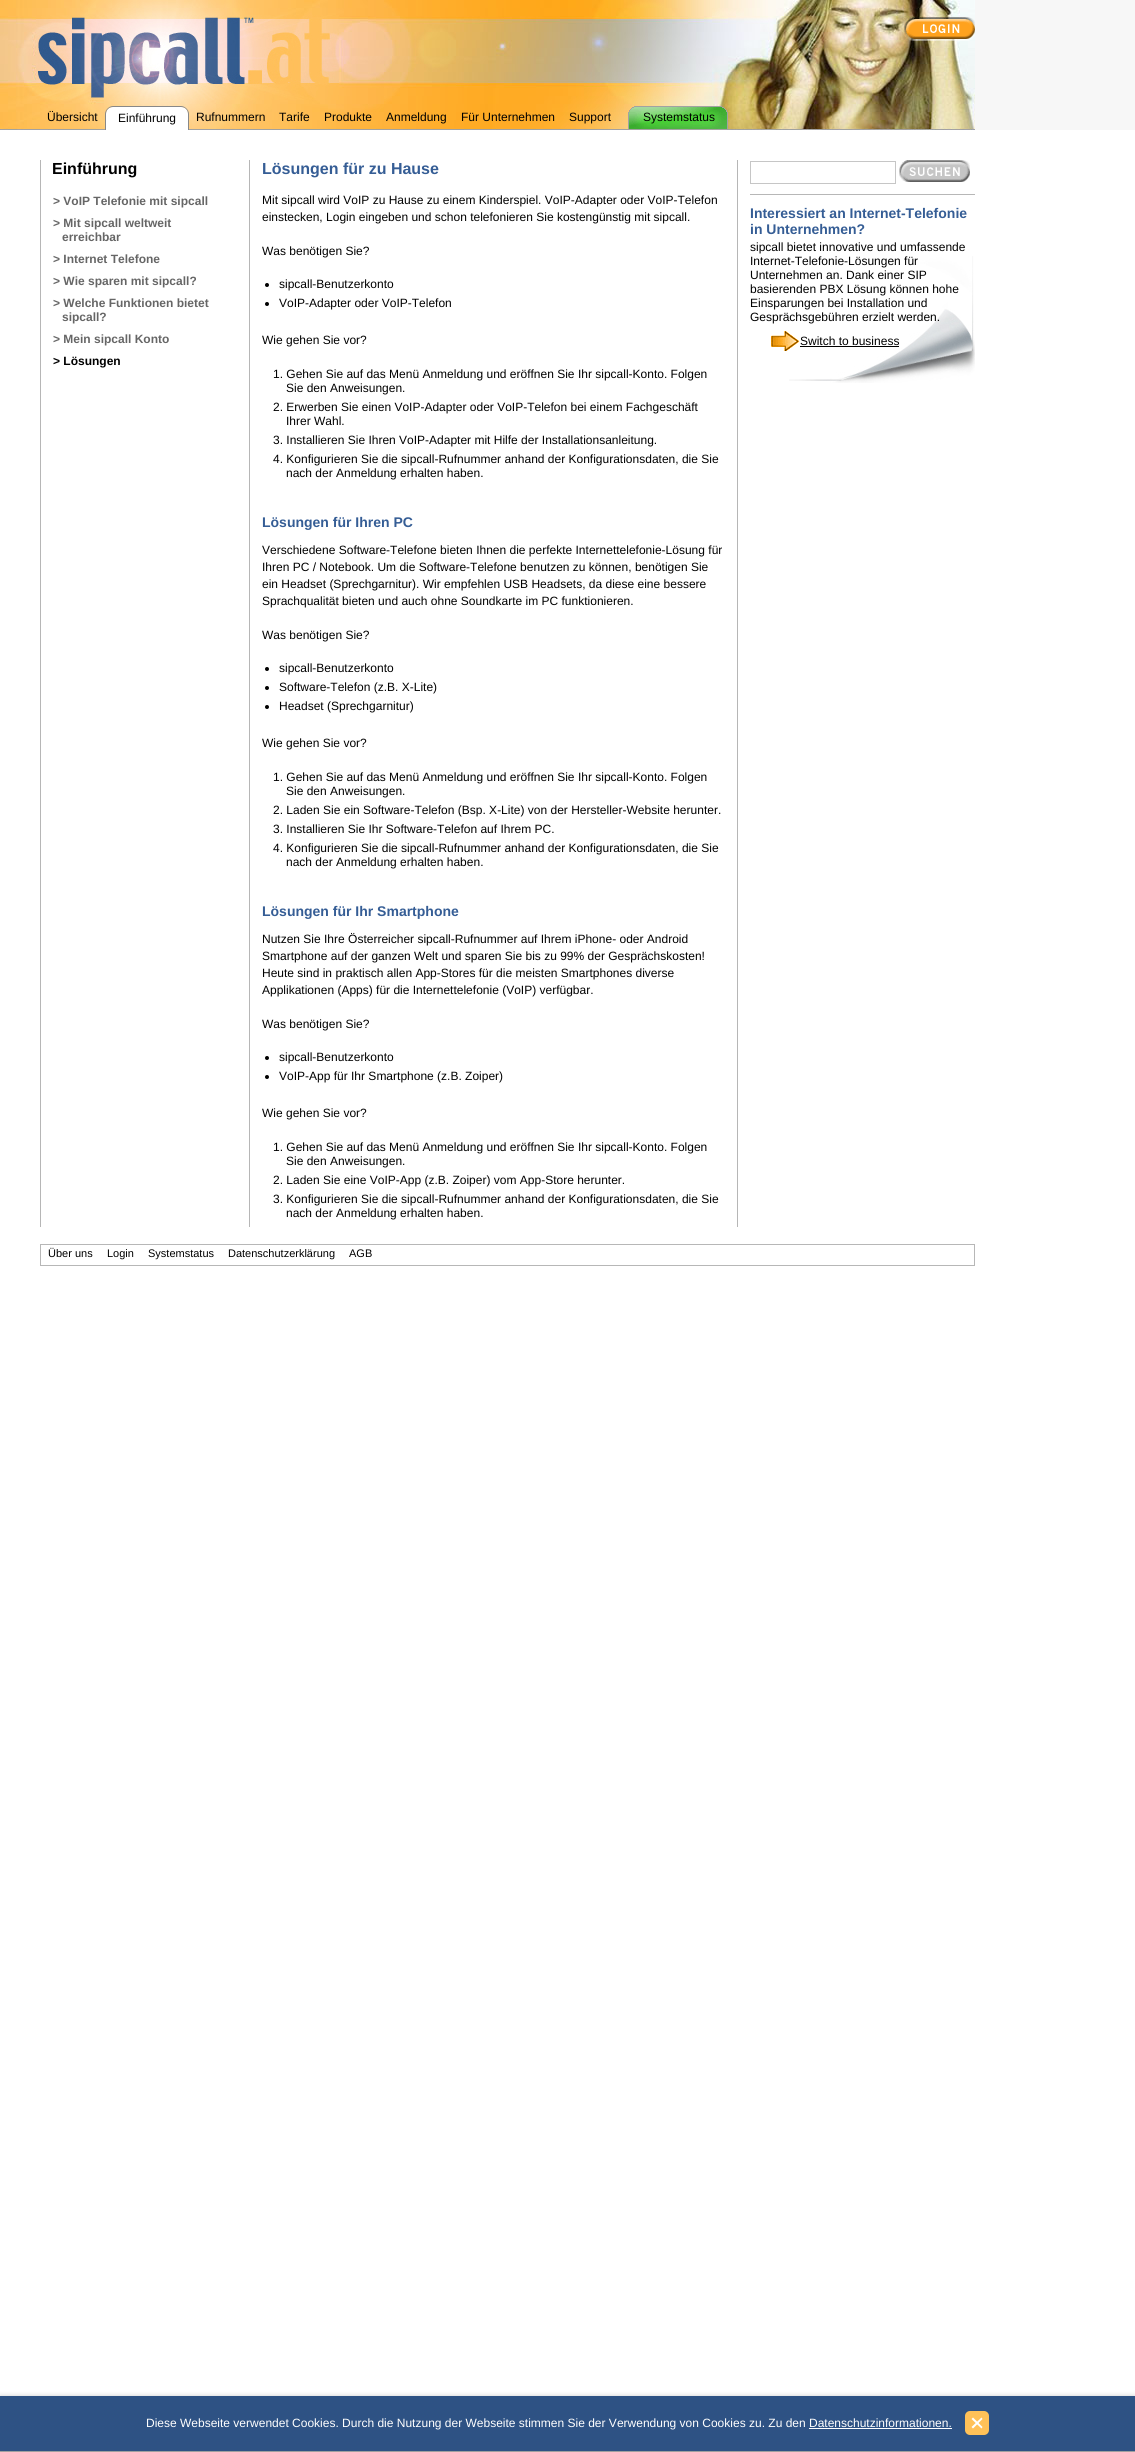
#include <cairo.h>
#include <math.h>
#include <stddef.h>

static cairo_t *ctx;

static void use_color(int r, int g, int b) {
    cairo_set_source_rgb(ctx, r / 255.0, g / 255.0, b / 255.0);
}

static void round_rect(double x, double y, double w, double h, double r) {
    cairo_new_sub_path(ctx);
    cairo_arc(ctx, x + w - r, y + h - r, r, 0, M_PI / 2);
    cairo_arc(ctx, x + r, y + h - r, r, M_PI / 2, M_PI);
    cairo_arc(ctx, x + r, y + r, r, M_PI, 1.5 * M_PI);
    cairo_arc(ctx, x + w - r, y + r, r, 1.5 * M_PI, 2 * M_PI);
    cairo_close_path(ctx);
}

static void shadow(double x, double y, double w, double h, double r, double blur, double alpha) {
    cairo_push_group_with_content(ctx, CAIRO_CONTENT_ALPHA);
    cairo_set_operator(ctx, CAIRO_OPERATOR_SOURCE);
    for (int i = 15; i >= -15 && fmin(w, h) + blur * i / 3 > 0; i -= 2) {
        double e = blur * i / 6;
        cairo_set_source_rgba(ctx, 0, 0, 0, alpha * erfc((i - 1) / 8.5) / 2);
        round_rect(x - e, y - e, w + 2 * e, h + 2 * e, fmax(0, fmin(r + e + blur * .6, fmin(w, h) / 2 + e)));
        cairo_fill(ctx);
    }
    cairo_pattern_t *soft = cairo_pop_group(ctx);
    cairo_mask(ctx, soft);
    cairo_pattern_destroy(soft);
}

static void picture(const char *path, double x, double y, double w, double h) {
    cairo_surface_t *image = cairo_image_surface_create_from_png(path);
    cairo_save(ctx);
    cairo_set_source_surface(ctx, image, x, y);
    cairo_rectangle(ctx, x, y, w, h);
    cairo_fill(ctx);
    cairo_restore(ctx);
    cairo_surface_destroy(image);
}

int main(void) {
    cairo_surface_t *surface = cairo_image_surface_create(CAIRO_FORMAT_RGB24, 1135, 2452);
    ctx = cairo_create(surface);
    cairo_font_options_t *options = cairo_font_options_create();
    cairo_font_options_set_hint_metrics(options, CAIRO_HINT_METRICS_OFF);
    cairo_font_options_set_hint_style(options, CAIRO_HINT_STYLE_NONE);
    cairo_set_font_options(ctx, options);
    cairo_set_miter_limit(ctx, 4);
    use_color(255, 255, 255);
    cairo_paint(ctx);
    use_color(247, 247, 247);
    cairo_rectangle(ctx, 975, 0, 160, 130);
    cairo_fill(ctx);
    picture("img1.png", 40, 160, 698, 1067);
    picture("img2.png", 0, 0, 975, 130);
    picture("img3.png", 36, 15, 303, 85);
    picture("img4.png", 904, 17, 71, 24);
    cairo_select_font_face(ctx, "Liberation Sans", CAIRO_FONT_SLANT_NORMAL, CAIRO_FONT_WEIGHT_NORMAL);
    cairo_set_font_size(ctx, 12);
    use_color(0, 0, 0);
    cairo_move_to(ctx, 47, 121);
    cairo_show_text(ctx, "Übersicht");
    use_color(255, 255, 255);
    cairo_new_path(ctx);
    cairo_move_to(ctx, 113, 107);
    cairo_line_to(ctx, 181, 107);
    cairo_curve_to(ctx, 185, 107, 188, 110, 188, 114);
    cairo_line_to(ctx, 188, 130);
    cairo_line_to(ctx, 106, 130);
    cairo_line_to(ctx, 106, 114);
    cairo_curve_to(ctx, 106, 110, 109, 107, 113, 107);
    cairo_close_path(ctx);
    cairo_fill(ctx);
    use_color(136, 136, 136);
    cairo_set_fill_rule(ctx, CAIRO_FILL_RULE_EVEN_ODD);
    cairo_new_path(ctx);
    cairo_move_to(ctx, 113, 106);
    cairo_line_to(ctx, 181, 106);
    cairo_curve_to(ctx, 185, 106, 189, 110, 189, 114);
    cairo_line_to(ctx, 189, 130);
    cairo_line_to(ctx, 105, 130);
    cairo_line_to(ctx, 105, 114);
    cairo_curve_to(ctx, 105, 110, 109, 106, 113, 106);
    cairo_close_path(ctx);
    cairo_move_to(ctx, 113, 107);
    cairo_line_to(ctx, 181, 107);
    cairo_curve_to(ctx, 185, 107, 188, 110, 188, 114);
    cairo_line_to(ctx, 188, 130);
    cairo_line_to(ctx, 106, 130);
    cairo_line_to(ctx, 106, 114);
    cairo_curve_to(ctx, 106, 110, 109, 107, 113, 107);
    cairo_close_path(ctx);
    cairo_fill(ctx);
    use_color(0, 0, 0);
    cairo_move_to(ctx, 118, 122);
    cairo_show_text(ctx, "Einführung");
    cairo_move_to(ctx, 196, 121);
    cairo_show_text(ctx, "Rufnummern");
    cairo_move_to(ctx, 279, 121);
    cairo_show_text(ctx, "Tarife");
    cairo_move_to(ctx, 324, 121);
    cairo_show_text(ctx, "Produkte");
    cairo_move_to(ctx, 386, 121);
    cairo_show_text(ctx, "Anmeldung");
    cairo_move_to(ctx, 461, 121);
    cairo_show_text(ctx, "Für Unternehmen");
    cairo_move_to(ctx, 569, 121);
    cairo_show_text(ctx, "Support");
    picture("img5.png", 628, 106, 100, 23);
    cairo_move_to(ctx, 643, 121);
    cairo_show_text(ctx, "Systemstatus");
    cairo_select_font_face(ctx, "Liberation Sans", CAIRO_FONT_SLANT_NORMAL, CAIRO_FONT_WEIGHT_BOLD);
    cairo_set_font_size(ctx, 16);
    cairo_move_to(ctx, 52, 174);
    cairo_show_text(ctx, "Einführung");
    cairo_set_font_size(ctx, 12);
    use_color(102, 102, 102);
    cairo_move_to(ctx, 53, 205);
    cairo_show_text(ctx, "> VoIP Telefonie mit sipcall");
    cairo_move_to(ctx, 53, 227);
    cairo_show_text(ctx, "> Mit sipcall weltweit");
    cairo_move_to(ctx, 62, 241);
    cairo_show_text(ctx, "erreichbar");
    cairo_move_to(ctx, 53, 263);
    cairo_show_text(ctx, "> Internet Telefone");
    cairo_move_to(ctx, 53, 285);
    cairo_show_text(ctx, "> Wie sparen mit sipcall?");
    cairo_move_to(ctx, 53, 307);
    cairo_show_text(ctx, "> Welche Funktionen bietet");
    cairo_move_to(ctx, 62, 321);
    cairo_show_text(ctx, "sipcall?");
    cairo_move_to(ctx, 53, 343);
    cairo_show_text(ctx, "> Mein sipcall Konto");
    use_color(0, 0, 0);
    cairo_move_to(ctx, 53, 365);
    cairo_show_text(ctx, "> Lösungen");
    cairo_set_font_size(ctx, 16);
    use_color(53, 93, 149);
    cairo_move_to(ctx, 262, 174);
    cairo_show_text(ctx, "Lösungen für zu Hause");
    cairo_select_font_face(ctx, "Liberation Sans", CAIRO_FONT_SLANT_NORMAL, CAIRO_FONT_WEIGHT_NORMAL);
    cairo_set_font_size(ctx, 12);
    use_color(0, 0, 0);
    cairo_move_to(ctx, 262, 204);
    cairo_show_text(ctx, "Mit sipcall wird VoIP zu Hause zu einem Kinderspiel. VoIP-Adapter oder VoIP-Telefon");
    cairo_move_to(ctx, 262, 221);
    cairo_show_text(ctx, "einstecken, Login eingeben und schon telefonieren Sie kostengünstig mit sipcall.");
    cairo_move_to(ctx, 262, 255);
    cairo_show_text(ctx, "Was benötigen Sie?");
    cairo_new_path(ctx);
    cairo_arc(ctx, 267, 285, 2, 0, 2 * M_PI);
    cairo_fill(ctx);
    cairo_move_to(ctx, 279, 288);
    cairo_show_text(ctx, "sipcall-Benutzerkonto");
    cairo_new_path(ctx);
    cairo_arc(ctx, 267, 304, 2, 0, 2 * M_PI);
    cairo_fill(ctx);
    cairo_move_to(ctx, 279, 307);
    cairo_show_text(ctx, "VoIP-Adapter oder VoIP-Telefon");
    cairo_move_to(ctx, 262, 344);
    cairo_show_text(ctx, "Wie gehen Sie vor?");
    cairo_move_to(ctx, 273, 378);
    cairo_show_text(ctx, "1. Gehen Sie auf das Menü Anmeldung und eröffnen Sie Ihr sipcall-Konto. Folgen");
    cairo_move_to(ctx, 286, 392);
    cairo_show_text(ctx, "Sie den Anweisungen.");
    cairo_move_to(ctx, 273, 411);
    cairo_show_text(ctx, "2. Erwerben Sie einen VoIP-Adapter oder VoIP-Telefon bei einem Fachgeschäft");
    cairo_move_to(ctx, 286, 425);
    cairo_show_text(ctx, "Ihrer Wahl.");
    cairo_move_to(ctx, 273, 444);
    cairo_show_text(ctx, "3. Installieren Sie Ihren VoIP-Adapter mit Hilfe der Installationsanleitung.");
    cairo_move_to(ctx, 273, 463);
    cairo_show_text(ctx, "4. Konfigurieren Sie die sipcall-Rufnummer anhand der Konfigurationsdaten, die Sie");
    cairo_move_to(ctx, 286, 477);
    cairo_show_text(ctx, "nach der Anmeldung erhalten haben.");
    cairo_select_font_face(ctx, "Liberation Sans", CAIRO_FONT_SLANT_NORMAL, CAIRO_FONT_WEIGHT_BOLD);
    cairo_set_font_size(ctx, 14);
    use_color(53, 93, 149);
    cairo_move_to(ctx, 262, 527);
    cairo_show_text(ctx, "Lösungen für Ihren PC");
    cairo_select_font_face(ctx, "Liberation Sans", CAIRO_FONT_SLANT_NORMAL, CAIRO_FONT_WEIGHT_NORMAL);
    cairo_set_font_size(ctx, 12);
    use_color(0, 0, 0);
    cairo_move_to(ctx, 262, 554);
    cairo_show_text(ctx, "Verschiedene Software-Telefone bieten Ihnen die perfekte Internettelefonie-Lösung für");
    cairo_move_to(ctx, 262, 571);
    cairo_show_text(ctx, "Ihren PC / Notebook. Um die Software-Telefone benutzen zu können, benötigen Sie");
    cairo_move_to(ctx, 262, 588);
    cairo_show_text(ctx, "ein Headset (Sprechgarnitur). Wir empfehlen USB Headsets, da diese eine bessere");
    cairo_move_to(ctx, 262, 605);
    cairo_show_text(ctx, "Sprachqualität bieten und auch ohne Soundkarte im PC funktionieren.");
    cairo_move_to(ctx, 262, 639);
    cairo_show_text(ctx, "Was benötigen Sie?");
    cairo_new_path(ctx);
    cairo_arc(ctx, 267, 669, 2, 0, 2 * M_PI);
    cairo_fill(ctx);
    cairo_move_to(ctx, 279, 672);
    cairo_show_text(ctx, "sipcall-Benutzerkonto");
    cairo_new_path(ctx);
    cairo_arc(ctx, 267, 688, 2, 0, 2 * M_PI);
    cairo_fill(ctx);
    cairo_move_to(ctx, 279, 691);
    cairo_show_text(ctx, "Software-Telefon (z.B. X-Lite)");
    cairo_new_path(ctx);
    cairo_arc(ctx, 267, 707, 2, 0, 2 * M_PI);
    cairo_fill(ctx);
    cairo_move_to(ctx, 279, 710);
    cairo_show_text(ctx, "Headset (Sprechgarnitur)");
    cairo_move_to(ctx, 262, 747);
    cairo_show_text(ctx, "Wie gehen Sie vor?");
    cairo_move_to(ctx, 273, 781);
    cairo_show_text(ctx, "1. Gehen Sie auf das Menü Anmeldung und eröffnen Sie Ihr sipcall-Konto. Folgen");
    cairo_move_to(ctx, 286, 795);
    cairo_show_text(ctx, "Sie den Anweisungen.");
    cairo_move_to(ctx, 273, 814);
    cairo_show_text(ctx, "2. Laden Sie ein Software-Telefon (Bsp. X-Lite) von der Hersteller-Website herunter.");
    cairo_move_to(ctx, 273, 833);
    cairo_show_text(ctx, "3. Installieren Sie Ihr Software-Telefon auf Ihrem PC.");
    cairo_move_to(ctx, 273, 852);
    cairo_show_text(ctx, "4. Konfigurieren Sie die sipcall-Rufnummer anhand der Konfigurationsdaten, die Sie");
    cairo_move_to(ctx, 286, 866);
    cairo_show_text(ctx, "nach der Anmeldung erhalten haben.");
    cairo_select_font_face(ctx, "Liberation Sans", CAIRO_FONT_SLANT_NORMAL, CAIRO_FONT_WEIGHT_BOLD);
    cairo_set_font_size(ctx, 14);
    use_color(53, 93, 149);
    cairo_move_to(ctx, 262, 916);
    cairo_show_text(ctx, "Lösungen für Ihr Smartphone");
    cairo_select_font_face(ctx, "Liberation Sans", CAIRO_FONT_SLANT_NORMAL, CAIRO_FONT_WEIGHT_NORMAL);
    cairo_set_font_size(ctx, 12);
    use_color(0, 0, 0);
    cairo_move_to(ctx, 262, 943);
    cairo_show_text(ctx, "Nutzen Sie Ihre Österreicher sipcall-Rufnummer auf Ihrem iPhone- oder Android");
    cairo_move_to(ctx, 262, 960);
    cairo_show_text(ctx, "Smartphone auf der ganzen Welt und sparen Sie bis zu 99% der Gesprächskosten!");
    cairo_move_to(ctx, 262, 977);
    cairo_show_text(ctx, "Heute sind in praktisch allen App-Stores für die meisten Smartphones diverse");
    cairo_move_to(ctx, 262, 994);
    cairo_show_text(ctx, "Applikationen (Apps) für die Internettelefonie (VoIP) verfügbar.");
    cairo_move_to(ctx, 262, 1028);
    cairo_show_text(ctx, "Was benötigen Sie?");
    cairo_new_path(ctx);
    cairo_arc(ctx, 267, 1058, 2, 0, 2 * M_PI);
    cairo_fill(ctx);
    cairo_move_to(ctx, 279, 1061);
    cairo_show_text(ctx, "sipcall-Benutzerkonto");
    cairo_new_path(ctx);
    cairo_arc(ctx, 267, 1077, 2, 0, 2 * M_PI);
    cairo_fill(ctx);
    cairo_move_to(ctx, 279, 1080);
    cairo_show_text(ctx, "VoIP-App für Ihr Smartphone (z.B. Zoiper)");
    cairo_move_to(ctx, 262, 1117);
    cairo_show_text(ctx, "Wie gehen Sie vor?");
    cairo_move_to(ctx, 273, 1151);
    cairo_show_text(ctx, "1. Gehen Sie auf das Menü Anmeldung und eröffnen Sie Ihr sipcall-Konto. Folgen");
    cairo_move_to(ctx, 286, 1165);
    cairo_show_text(ctx, "Sie den Anweisungen.");
    cairo_move_to(ctx, 273, 1184);
    cairo_show_text(ctx, "2. Laden Sie eine VoIP-App (z.B. Zoiper) vom App-Store herunter.");
    cairo_move_to(ctx, 273, 1203);
    cairo_show_text(ctx, "3. Konfigurieren Sie die sipcall-Rufnummer anhand der Konfigurationsdaten, die Sie");
    cairo_move_to(ctx, 286, 1217);
    cairo_show_text(ctx, "nach der Anmeldung erhalten haben.");
    cairo_rectangle(ctx, 750.5, 161.5, 145, 22);
    use_color(198, 198, 198);
    cairo_set_line_width(ctx, 1);
    cairo_stroke(ctx);
    picture("img6.png", 899, 160, 71, 22);
    use_color(183, 183, 183);
    cairo_rectangle(ctx, 750, 194, 225, 1);
    cairo_fill(ctx);
    picture("img7.png", 789, 256, 186, 127);
    cairo_select_font_face(ctx, "Liberation Sans", CAIRO_FONT_SLANT_NORMAL, CAIRO_FONT_WEIGHT_BOLD);
    cairo_set_font_size(ctx, 14);
    use_color(53, 93, 149);
    cairo_move_to(ctx, 750, 218);
    cairo_show_text(ctx, "Interessiert an Internet-Telefonie");
    cairo_move_to(ctx, 750, 234);
    cairo_show_text(ctx, "in Unternehmen?");
    cairo_select_font_face(ctx, "Liberation Sans", CAIRO_FONT_SLANT_NORMAL, CAIRO_FONT_WEIGHT_NORMAL);
    cairo_set_font_size(ctx, 12);
    use_color(0, 0, 0);
    cairo_move_to(ctx, 750, 251);
    cairo_show_text(ctx, "sipcall bietet innovative und umfassende");
    cairo_move_to(ctx, 750, 265);
    cairo_show_text(ctx, "Internet-Telefonie-Lösungen für");
    cairo_move_to(ctx, 750, 279);
    cairo_show_text(ctx, "Unternehmen an. Dank einer SIP");
    cairo_move_to(ctx, 750, 293);
    cairo_show_text(ctx, "basierenden PBX Lösung können hohe");
    cairo_move_to(ctx, 750, 307);
    cairo_show_text(ctx, "Einsparungen bei Installation und");
    cairo_move_to(ctx, 750, 321);
    cairo_show_text(ctx, "Gesprächsgebühren erzielt werden.");
    picture("img8.png", 771, 331, 29, 20);
    cairo_move_to(ctx, 800, 345);
    cairo_show_text(ctx, "Switch to business");
    cairo_rectangle(ctx, 800, 346, 99, 1);
    cairo_fill(ctx);
    cairo_rectangle(ctx, 40.5, 1244.5, 934, 21);
    use_color(183, 183, 183);
    cairo_stroke(ctx);
    cairo_set_font_size(ctx, 11);
    use_color(0, 0, 0);
    cairo_move_to(ctx, 48, 1257);
    cairo_show_text(ctx, "Über uns");
    cairo_move_to(ctx, 107, 1257);
    cairo_show_text(ctx, "Login");
    cairo_move_to(ctx, 148, 1257);
    cairo_show_text(ctx, "Systemstatus");
    cairo_move_to(ctx, 228, 1257);
    cairo_show_text(ctx, "Datenschutzerklärung");
    cairo_move_to(ctx, 349, 1257);
    cairo_show_text(ctx, "AGB");
    use_color(0, 0, 0);
    shadow(0, 2396, 1135, 56, 0, 2.5, 0.2);
    use_color(46, 82, 132);
    cairo_rectangle(ctx, 0, 2396, 1135, 55);
    cairo_fill(ctx);
    use_color(160, 160, 160);
    cairo_rectangle(ctx, 0, 2451, 1135, 1);
    cairo_fill(ctx);
    cairo_set_font_size(ctx, 12);
    use_color(255, 255, 255);
    cairo_move_to(ctx, 146, 2427);
    cairo_show_text(ctx, "Diese Webseite verwendet Cookies. Durch die Nutzung der Webseite stimmen Sie der Verwendung von Cookies zu. Zu den Datenschutzinformationen.");
    use_color(255, 193, 88);
    round_rect(965, 2411, 24, 24, 5);
    cairo_fill(ctx);
    use_color(255, 255, 255);
    cairo_set_fill_rule(ctx, CAIRO_FILL_RULE_WINDING);
    cairo_new_path(ctx);
    cairo_move_to(ctx, 971.5, 2419);
    cairo_line_to(ctx, 973, 2417.5);
    cairo_line_to(ctx, 982.5, 2427);
    cairo_line_to(ctx, 981.5, 2428.5);
    cairo_close_path(ctx);
    cairo_fill(ctx);
    cairo_new_path(ctx);
    cairo_move_to(ctx, 981.5, 2417.5);
    cairo_line_to(ctx, 982.5, 2419);
    cairo_line_to(ctx, 973, 2428.5);
    cairo_line_to(ctx, 971.5, 2427);
    cairo_close_path(ctx);
    cairo_fill(ctx);
    cairo_rectangle(ctx, 809, 2428, 143, 1);
    cairo_fill(ctx);
    cairo_surface_write_to_png(surface, "result.png");
    cairo_font_options_destroy(options);
    cairo_destroy(ctx);
    cairo_surface_destroy(surface);
    return 0;
}
